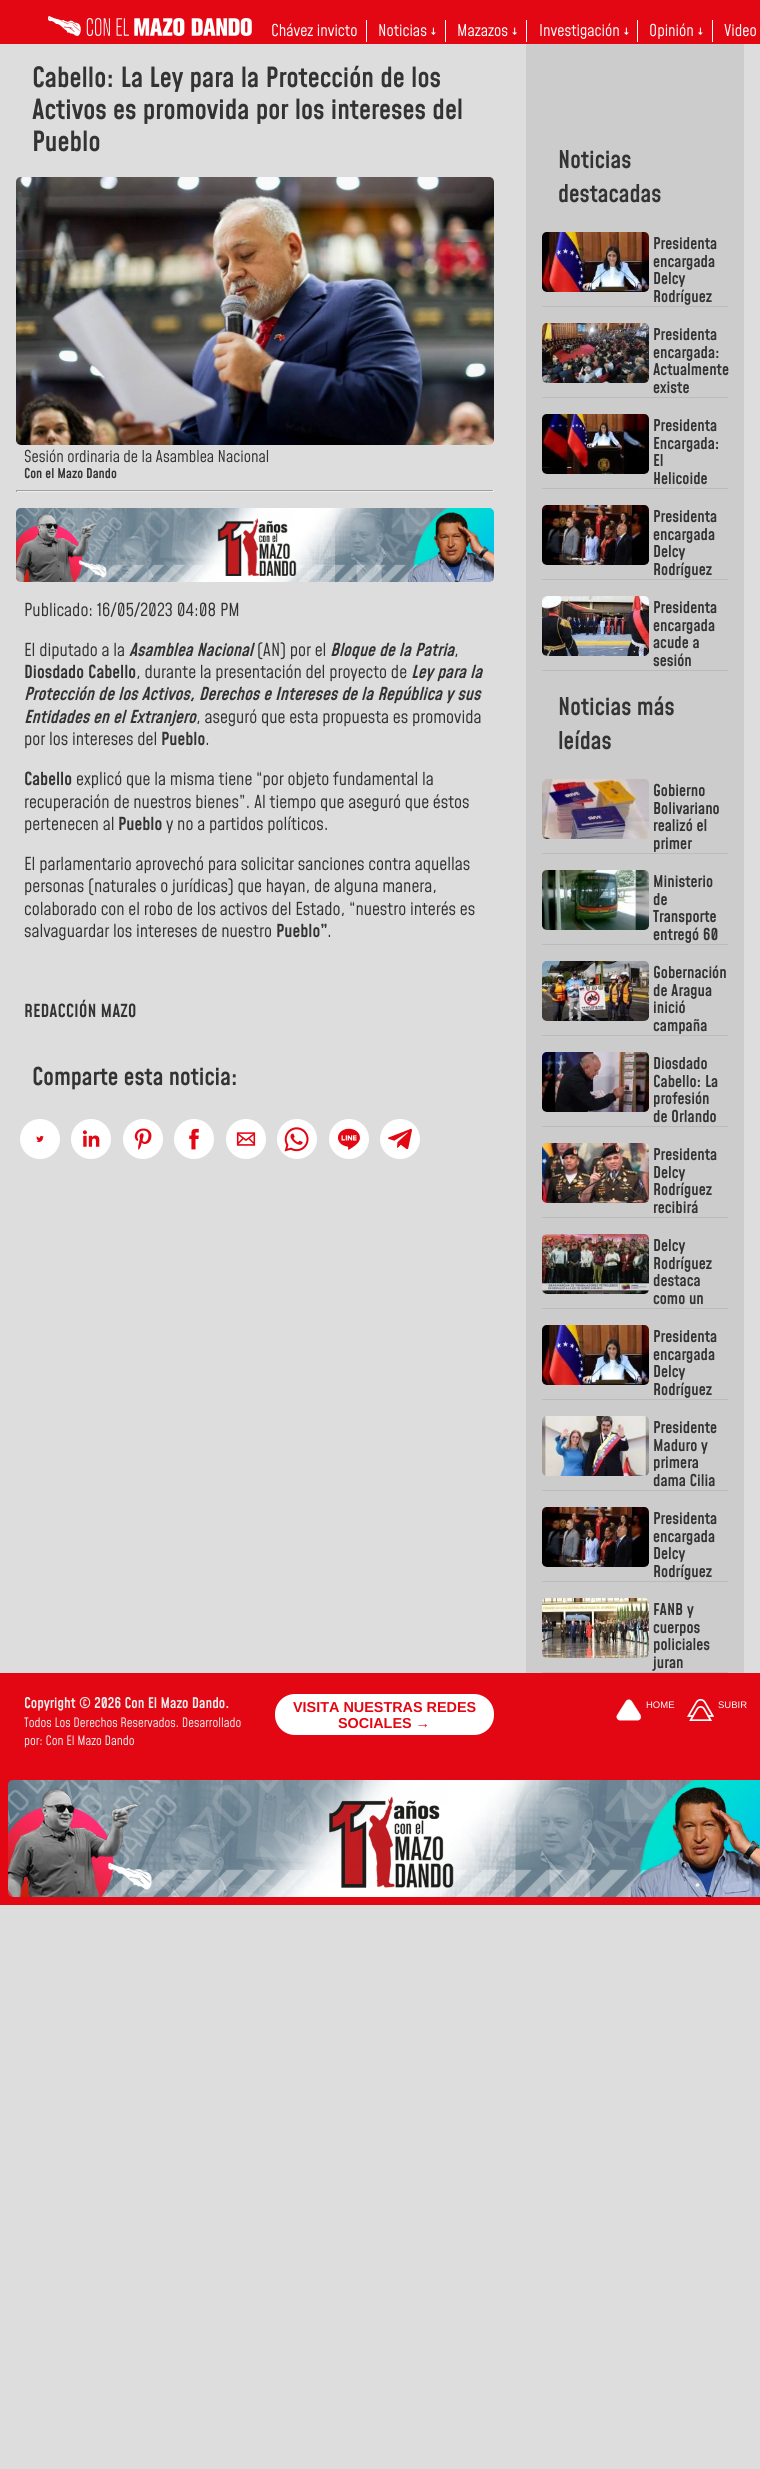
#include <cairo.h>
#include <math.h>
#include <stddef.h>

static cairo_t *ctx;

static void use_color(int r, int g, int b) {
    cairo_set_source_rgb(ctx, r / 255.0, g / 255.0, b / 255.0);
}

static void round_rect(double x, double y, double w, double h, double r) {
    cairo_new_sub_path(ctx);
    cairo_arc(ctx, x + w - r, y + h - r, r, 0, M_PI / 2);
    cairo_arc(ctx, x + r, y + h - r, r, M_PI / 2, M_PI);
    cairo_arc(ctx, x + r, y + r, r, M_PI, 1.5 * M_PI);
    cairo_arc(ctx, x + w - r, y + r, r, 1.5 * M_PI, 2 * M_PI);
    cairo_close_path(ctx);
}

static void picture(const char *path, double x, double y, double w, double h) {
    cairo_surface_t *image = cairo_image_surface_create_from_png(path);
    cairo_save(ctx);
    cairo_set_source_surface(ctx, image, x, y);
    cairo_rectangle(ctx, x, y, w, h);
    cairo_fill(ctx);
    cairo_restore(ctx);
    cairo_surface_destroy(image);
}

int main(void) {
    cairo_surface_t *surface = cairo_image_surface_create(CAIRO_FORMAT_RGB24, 760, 2469);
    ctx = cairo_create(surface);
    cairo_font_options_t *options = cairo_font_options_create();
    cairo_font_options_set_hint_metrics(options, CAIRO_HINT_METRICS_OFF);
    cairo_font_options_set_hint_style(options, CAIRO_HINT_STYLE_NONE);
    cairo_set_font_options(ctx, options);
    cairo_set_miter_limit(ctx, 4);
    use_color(221, 221, 221);
    cairo_paint(ctx);
    use_color(227, 6, 19);
    cairo_rectangle(ctx, 0, 0, 760, 44);
    cairo_fill(ctx);
    picture("img1.png", 48, 16, 204, 20);
    use_color(255, 255, 255);
    cairo_rectangle(ctx, 366, 20, 1, 22);
    cairo_fill(ctx);
    cairo_select_font_face(ctx, "Mohave Light", CAIRO_FONT_SLANT_NORMAL, CAIRO_FONT_WEIGHT_NORMAL);
    cairo_set_font_size(ctx, 16);
    cairo_move_to(ctx, 271, 36);
    cairo_show_text(ctx, "Chávez invicto");
    cairo_rectangle(ctx, 445, 20, 1, 22);
    cairo_fill(ctx);
    cairo_move_to(ctx, 378, 36);
    cairo_show_text(ctx, "Noticias ↓");
    cairo_rectangle(ctx, 526, 20, 1, 22);
    cairo_fill(ctx);
    cairo_move_to(ctx, 457, 36);
    cairo_show_text(ctx, "Mazazos ↓");
    cairo_rectangle(ctx, 637, 20, 1, 22);
    cairo_fill(ctx);
    cairo_move_to(ctx, 539, 36);
    cairo_show_text(ctx, "Investigación ↓");
    cairo_rectangle(ctx, 712, 20, 1, 22);
    cairo_fill(ctx);
    cairo_move_to(ctx, 649, 36);
    cairo_show_text(ctx, "Opinión ↓");
    cairo_move_to(ctx, 724, 36);
    cairo_show_text(ctx, "Video");
    cairo_select_font_face(ctx, "Mohave SemiBold", CAIRO_FONT_SLANT_NORMAL, CAIRO_FONT_WEIGHT_NORMAL);
    cairo_set_font_size(ctx, 27.25);
    use_color(51, 51, 51);
    cairo_move_to(ctx, 32, 87);
    cairo_show_text(ctx, "Cabello: La Ley para la Protección de los");
    cairo_move_to(ctx, 32, 119);
    cairo_show_text(ctx, "Activos es promovida por los intereses del");
    cairo_move_to(ctx, 32, 151);
    cairo_show_text(ctx, "Pueblo");
    picture("img2.png", 16, 177, 478, 268);
    cairo_select_font_face(ctx, "Mohave Light", CAIRO_FONT_SLANT_NORMAL, CAIRO_FONT_WEIGHT_NORMAL);
    cairo_set_font_size(ctx, 16);
    cairo_move_to(ctx, 24, 462);
    cairo_show_text(ctx, "Sesión ordinaria de la Asamblea Nacional");
    cairo_select_font_face(ctx, "Mohave SemiBold", CAIRO_FONT_SLANT_NORMAL, CAIRO_FONT_WEIGHT_NORMAL);
    cairo_set_font_size(ctx, 13.25);
    cairo_move_to(ctx, 24, 478);
    cairo_show_text(ctx, "Con el Mazo Dando");
    use_color(159, 159, 159);
    cairo_rectangle(ctx, 16, 490, 478, 1);
    cairo_fill(ctx);
    use_color(238, 238, 238);
    cairo_rectangle(ctx, 493, 490, 1, 2);
    cairo_fill(ctx);
    cairo_rectangle(ctx, 16, 491, 478, 1);
    cairo_fill(ctx);
    use_color(159, 159, 159);
    cairo_rectangle(ctx, 16, 490, 1, 2);
    cairo_fill(ctx);
    picture("img3.png", 16, 508, 478, 74);
    cairo_select_font_face(ctx, "Mohave Light", CAIRO_FONT_SLANT_NORMAL, CAIRO_FONT_WEIGHT_NORMAL);
    cairo_set_font_size(ctx, 17.6);
    use_color(51, 51, 51);
    cairo_move_to(ctx, 24, 616);
    cairo_show_text(ctx, "Publicado: 16/05/2023 04:08 PM");
    cairo_move_to(ctx, 24, 656);
    cairo_show_text(ctx, "El diputado a la");
    cairo_select_font_face(ctx, "Mohave SemiBold", CAIRO_FONT_SLANT_ITALIC, CAIRO_FONT_WEIGHT_NORMAL);
    cairo_move_to(ctx, 129, 656);
    cairo_show_text(ctx, "Asamblea Nacional");
    cairo_select_font_face(ctx, "Mohave Light", CAIRO_FONT_SLANT_NORMAL, CAIRO_FONT_WEIGHT_NORMAL);
    cairo_move_to(ctx, 257, 656);
    cairo_show_text(ctx, "(AN) por el");
    cairo_select_font_face(ctx, "Mohave SemiBold", CAIRO_FONT_SLANT_ITALIC, CAIRO_FONT_WEIGHT_NORMAL);
    cairo_move_to(ctx, 330, 656);
    cairo_show_text(ctx, "Bloque de la Patria");
    cairo_select_font_face(ctx, "Mohave Light", CAIRO_FONT_SLANT_NORMAL, CAIRO_FONT_WEIGHT_NORMAL);
    cairo_move_to(ctx, 454, 656);
    cairo_show_text(ctx, ",");
    cairo_select_font_face(ctx, "Mohave SemiBold", CAIRO_FONT_SLANT_NORMAL, CAIRO_FONT_WEIGHT_NORMAL);
    cairo_move_to(ctx, 24, 678);
    cairo_show_text(ctx, "Diosdado Cabello");
    cairo_select_font_face(ctx, "Mohave Light", CAIRO_FONT_SLANT_NORMAL, CAIRO_FONT_WEIGHT_NORMAL);
    cairo_move_to(ctx, 136, 678);
    cairo_show_text(ctx, ", durante la presentación del proyecto de");
    cairo_select_font_face(ctx, "Mohave SemiBold", CAIRO_FONT_SLANT_ITALIC, CAIRO_FONT_WEIGHT_NORMAL);
    cairo_move_to(ctx, 411, 678);
    cairo_show_text(ctx, "Ley para la");
    cairo_move_to(ctx, 24, 700);
    cairo_show_text(ctx, "Protección de los Activos, Derechos e Intereses de la República y sus");
    cairo_move_to(ctx, 24, 723);
    cairo_show_text(ctx, "Entidades en el Extranjero");
    cairo_select_font_face(ctx, "Mohave Light", CAIRO_FONT_SLANT_NORMAL, CAIRO_FONT_WEIGHT_NORMAL);
    cairo_move_to(ctx, 196, 723);
    cairo_show_text(ctx, ", aseguró que esta propuesta es promovida");
    cairo_move_to(ctx, 24, 745);
    cairo_show_text(ctx, "por los intereses del");
    cairo_select_font_face(ctx, "Mohave SemiBold", CAIRO_FONT_SLANT_NORMAL, CAIRO_FONT_WEIGHT_NORMAL);
    cairo_move_to(ctx, 161, 745);
    cairo_show_text(ctx, "Pueblo");
    cairo_select_font_face(ctx, "Mohave Light", CAIRO_FONT_SLANT_NORMAL, CAIRO_FONT_WEIGHT_NORMAL);
    cairo_move_to(ctx, 205, 745);
    cairo_show_text(ctx, ".");
    cairo_select_font_face(ctx, "Mohave SemiBold", CAIRO_FONT_SLANT_NORMAL, CAIRO_FONT_WEIGHT_NORMAL);
    cairo_move_to(ctx, 24, 785);
    cairo_show_text(ctx, "Cabello");
    cairo_select_font_face(ctx, "Mohave Light", CAIRO_FONT_SLANT_NORMAL, CAIRO_FONT_WEIGHT_NORMAL);
    cairo_move_to(ctx, 76, 785);
    cairo_show_text(ctx, "explicó que la misma tiene “por objeto fundamental la");
    cairo_move_to(ctx, 24, 808);
    cairo_show_text(ctx, "recuperación de nuestros bienes”. Al tiempo que aseguró que éstos");
    cairo_move_to(ctx, 24, 830);
    cairo_show_text(ctx, "pertenecen al");
    cairo_select_font_face(ctx, "Mohave SemiBold", CAIRO_FONT_SLANT_NORMAL, CAIRO_FONT_WEIGHT_NORMAL);
    cairo_move_to(ctx, 118, 830);
    cairo_show_text(ctx, "Pueblo");
    cairo_select_font_face(ctx, "Mohave Light", CAIRO_FONT_SLANT_NORMAL, CAIRO_FONT_WEIGHT_NORMAL);
    cairo_move_to(ctx, 166, 830);
    cairo_show_text(ctx, "y no a partidos políticos.");
    cairo_move_to(ctx, 24, 870);
    cairo_show_text(ctx, "El parlamentario aprovechó para solicitar sanciones contra aquellas");
    cairo_move_to(ctx, 24, 892);
    cairo_show_text(ctx, "personas (naturales o jurídicas) que hayan, de alguna manera,");
    cairo_move_to(ctx, 24, 915);
    cairo_show_text(ctx, "colaborado con el robo de los activos del Estado, “nuestro interés es");
    cairo_move_to(ctx, 24, 937);
    cairo_show_text(ctx, "salvaguardar los intereses de nuestro");
    cairo_select_font_face(ctx, "Mohave SemiBold", CAIRO_FONT_SLANT_NORMAL, CAIRO_FONT_WEIGHT_NORMAL);
    cairo_move_to(ctx, 276, 937);
    cairo_show_text(ctx, "Pueblo”");
    cairo_select_font_face(ctx, "Mohave Light", CAIRO_FONT_SLANT_NORMAL, CAIRO_FONT_WEIGHT_NORMAL);
    cairo_move_to(ctx, 327, 937);
    cairo_show_text(ctx, ".");
    cairo_select_font_face(ctx, "Mohave SemiBold", CAIRO_FONT_SLANT_NORMAL, CAIRO_FONT_WEIGHT_NORMAL);
    cairo_move_to(ctx, 24, 1017);
    cairo_show_text(ctx, "REDACCIÓN MAZO");
    cairo_set_font_size(ctx, 24);
    cairo_move_to(ctx, 32, 1085);
    cairo_show_text(ctx, "Comparte esta noticia:");
    use_color(255, 255, 255);
    cairo_new_path(ctx);
    cairo_arc(ctx, 40, 1139, 20, 0, 2 * M_PI);
    cairo_fill(ctx);
    picture("img4.png", 36, 1136, 8, 6);
    cairo_arc(ctx, 91, 1139, 20, 0, 2 * M_PI);
    cairo_fill(ctx);
    picture("img5.png", 82, 1130, 18, 17);
    cairo_arc(ctx, 143, 1139, 20, 0, 2 * M_PI);
    cairo_fill(ctx);
    picture("img6.png", 134, 1128, 18, 22);
    cairo_arc(ctx, 194, 1139, 20, 0, 2 * M_PI);
    cairo_fill(ctx);
    picture("img7.png", 189, 1128, 10, 22);
    cairo_arc(ctx, 246, 1139, 20, 0, 2 * M_PI);
    cairo_fill(ctx);
    picture("img8.png", 236, 1132, 20, 14);
    cairo_arc(ctx, 297, 1139, 20, 0, 2 * M_PI);
    cairo_fill(ctx);
    picture("img9.png", 284, 1127, 25, 25);
    cairo_arc(ctx, 349, 1139, 20, 0, 2 * M_PI);
    cairo_fill(ctx);
    picture("img10.png", 337, 1128, 23, 22);
    cairo_arc(ctx, 400, 1139, 20, 0, 2 * M_PI);
    cairo_fill(ctx);
    picture("img11.png", 388, 1128, 24, 22);
    use_color(204, 204, 204);
    cairo_rectangle(ctx, 526, 44, 218, 1629);
    cairo_fill(ctx);
    use_color(51, 51, 51);
    cairo_move_to(ctx, 558, 168);
    cairo_show_text(ctx, "Noticias");
    cairo_move_to(ctx, 558, 202);
    cairo_show_text(ctx, "destacadas");
    use_color(187, 187, 187);
    cairo_rectangle(ctx, 542, 306, 186, 1);
    cairo_fill(ctx);
    picture("img12.png", 542, 232, 107, 60);
    cairo_set_font_size(ctx, 16);
    use_color(51, 51, 51);
    cairo_move_to(ctx, 653, 249);
    cairo_show_text(ctx, "Presidenta");
    cairo_move_to(ctx, 653, 267);
    cairo_show_text(ctx, "encargada");
    cairo_move_to(ctx, 653, 284);
    cairo_show_text(ctx, "Delcy");
    cairo_move_to(ctx, 653, 302);
    cairo_show_text(ctx, "Rodríguez");
    use_color(187, 187, 187);
    cairo_rectangle(ctx, 542, 397, 186, 1);
    cairo_fill(ctx);
    picture("img13.png", 542, 323, 107, 60);
    use_color(51, 51, 51);
    cairo_move_to(ctx, 653, 340);
    cairo_show_text(ctx, "Presidenta");
    cairo_move_to(ctx, 653, 358);
    cairo_show_text(ctx, "encargada:");
    cairo_move_to(ctx, 653, 375);
    cairo_show_text(ctx, "Actualmente");
    cairo_move_to(ctx, 653, 393);
    cairo_show_text(ctx, "existe");
    use_color(187, 187, 187);
    cairo_rectangle(ctx, 542, 488, 186, 1);
    cairo_fill(ctx);
    picture("img14.png", 542, 414, 107, 60);
    use_color(51, 51, 51);
    cairo_move_to(ctx, 653, 431);
    cairo_show_text(ctx, "Presidenta");
    cairo_move_to(ctx, 653, 449);
    cairo_show_text(ctx, "Encargada:");
    cairo_move_to(ctx, 653, 466);
    cairo_show_text(ctx, "El");
    cairo_move_to(ctx, 653, 484);
    cairo_show_text(ctx, "Helicoide");
    use_color(187, 187, 187);
    cairo_rectangle(ctx, 542, 579, 186, 1);
    cairo_fill(ctx);
    picture("img15.png", 542, 505, 107, 60);
    use_color(51, 51, 51);
    cairo_move_to(ctx, 653, 522);
    cairo_show_text(ctx, "Presidenta");
    cairo_move_to(ctx, 653, 540);
    cairo_show_text(ctx, "encargada");
    cairo_move_to(ctx, 653, 557);
    cairo_show_text(ctx, "Delcy");
    cairo_move_to(ctx, 653, 575);
    cairo_show_text(ctx, "Rodríguez");
    use_color(187, 187, 187);
    cairo_rectangle(ctx, 542, 670, 186, 1);
    cairo_fill(ctx);
    picture("img16.png", 542, 596, 107, 60);
    use_color(51, 51, 51);
    cairo_move_to(ctx, 653, 613);
    cairo_show_text(ctx, "Presidenta");
    cairo_move_to(ctx, 653, 631);
    cairo_show_text(ctx, "encargada");
    cairo_move_to(ctx, 653, 648);
    cairo_show_text(ctx, "acude a");
    cairo_move_to(ctx, 653, 666);
    cairo_show_text(ctx, "sesión");
    cairo_set_font_size(ctx, 24);
    cairo_move_to(ctx, 558, 715);
    cairo_show_text(ctx, "Noticias más");
    cairo_move_to(ctx, 558, 749);
    cairo_show_text(ctx, "leídas");
    use_color(187, 187, 187);
    cairo_rectangle(ctx, 542, 853, 186, 1);
    cairo_fill(ctx);
    picture("img17.png", 542, 779, 107, 60);
    cairo_set_font_size(ctx, 16);
    use_color(51, 51, 51);
    cairo_move_to(ctx, 653, 796);
    cairo_show_text(ctx, "Gobierno");
    cairo_move_to(ctx, 653, 814);
    cairo_show_text(ctx, "Bolivariano");
    cairo_move_to(ctx, 653, 831);
    cairo_show_text(ctx, "realizó el");
    cairo_move_to(ctx, 653, 849);
    cairo_show_text(ctx, "primer");
    use_color(187, 187, 187);
    cairo_rectangle(ctx, 542, 944, 186, 1);
    cairo_fill(ctx);
    picture("img18.png", 542, 870, 107, 60);
    use_color(51, 51, 51);
    cairo_move_to(ctx, 653, 887);
    cairo_show_text(ctx, "Ministerio");
    cairo_move_to(ctx, 653, 905);
    cairo_show_text(ctx, "de");
    cairo_move_to(ctx, 653, 922);
    cairo_show_text(ctx, "Transporte");
    cairo_move_to(ctx, 653, 940);
    cairo_show_text(ctx, "entregó 60");
    use_color(187, 187, 187);
    cairo_rectangle(ctx, 542, 1035, 186, 1);
    cairo_fill(ctx);
    picture("img19.png", 542, 961, 107, 60);
    use_color(51, 51, 51);
    cairo_move_to(ctx, 653, 978);
    cairo_show_text(ctx, "Gobernación");
    cairo_move_to(ctx, 653, 996);
    cairo_show_text(ctx, "de Aragua");
    cairo_move_to(ctx, 653, 1013);
    cairo_show_text(ctx, "inició");
    cairo_move_to(ctx, 653, 1031);
    cairo_show_text(ctx, "campaña");
    use_color(187, 187, 187);
    cairo_rectangle(ctx, 542, 1126, 186, 1);
    cairo_fill(ctx);
    picture("img20.png", 542, 1052, 107, 60);
    use_color(51, 51, 51);
    cairo_move_to(ctx, 653, 1069);
    cairo_show_text(ctx, "Diosdado");
    cairo_move_to(ctx, 653, 1087);
    cairo_show_text(ctx, "Cabello: La");
    cairo_move_to(ctx, 653, 1104);
    cairo_show_text(ctx, "profesión");
    cairo_move_to(ctx, 653, 1122);
    cairo_show_text(ctx, "de Orlando");
    use_color(187, 187, 187);
    cairo_rectangle(ctx, 542, 1217, 186, 1);
    cairo_fill(ctx);
    picture("img21.png", 542, 1143, 107, 60);
    use_color(51, 51, 51);
    cairo_move_to(ctx, 653, 1160);
    cairo_show_text(ctx, "Presidenta");
    cairo_move_to(ctx, 653, 1178);
    cairo_show_text(ctx, "Delcy");
    cairo_move_to(ctx, 653, 1195);
    cairo_show_text(ctx, "Rodríguez");
    cairo_move_to(ctx, 653, 1213);
    cairo_show_text(ctx, "recibirá");
    use_color(187, 187, 187);
    cairo_rectangle(ctx, 542, 1308, 186, 1);
    cairo_fill(ctx);
    picture("img22.png", 542, 1234, 107, 60);
    use_color(51, 51, 51);
    cairo_move_to(ctx, 653, 1251);
    cairo_show_text(ctx, "Delcy");
    cairo_move_to(ctx, 653, 1269);
    cairo_show_text(ctx, "Rodríguez");
    cairo_move_to(ctx, 653, 1286);
    cairo_show_text(ctx, "destaca");
    cairo_move_to(ctx, 653, 1304);
    cairo_show_text(ctx, "como un");
    use_color(187, 187, 187);
    cairo_rectangle(ctx, 542, 1399, 186, 1);
    cairo_fill(ctx);
    picture("img12.png", 542, 1325, 107, 60);
    use_color(51, 51, 51);
    cairo_move_to(ctx, 653, 1342);
    cairo_show_text(ctx, "Presidenta");
    cairo_move_to(ctx, 653, 1360);
    cairo_show_text(ctx, "encargada");
    cairo_move_to(ctx, 653, 1377);
    cairo_show_text(ctx, "Delcy");
    cairo_move_to(ctx, 653, 1395);
    cairo_show_text(ctx, "Rodríguez");
    use_color(187, 187, 187);
    cairo_rectangle(ctx, 542, 1490, 186, 1);
    cairo_fill(ctx);
    picture("img23.png", 542, 1416, 107, 60);
    use_color(51, 51, 51);
    cairo_move_to(ctx, 653, 1433);
    cairo_show_text(ctx, "Presidente");
    cairo_move_to(ctx, 653, 1451);
    cairo_show_text(ctx, "Maduro y");
    cairo_move_to(ctx, 653, 1468);
    cairo_show_text(ctx, "primera");
    cairo_move_to(ctx, 653, 1486);
    cairo_show_text(ctx, "dama Cilia");
    use_color(187, 187, 187);
    cairo_rectangle(ctx, 542, 1581, 186, 1);
    cairo_fill(ctx);
    picture("img24.png", 542, 1507, 107, 60);
    use_color(51, 51, 51);
    cairo_move_to(ctx, 653, 1524);
    cairo_show_text(ctx, "Presidenta");
    cairo_move_to(ctx, 653, 1542);
    cairo_show_text(ctx, "encargada");
    cairo_move_to(ctx, 653, 1559);
    cairo_show_text(ctx, "Delcy");
    cairo_move_to(ctx, 653, 1577);
    cairo_show_text(ctx, "Rodríguez");
    use_color(187, 187, 187);
    cairo_rectangle(ctx, 542, 1672, 186, 1);
    cairo_fill(ctx);
    picture("img25.png", 542, 1598, 107, 60);
    use_color(51, 51, 51);
    cairo_move_to(ctx, 653, 1615);
    cairo_show_text(ctx, "FANB y");
    cairo_move_to(ctx, 653, 1633);
    cairo_show_text(ctx, "cuerpos");
    cairo_move_to(ctx, 653, 1650);
    cairo_show_text(ctx, "policiales");
    cairo_move_to(ctx, 653, 1668);
    cairo_show_text(ctx, "juran");
    use_color(227, 6, 19);
    cairo_rectangle(ctx, 0, 1673, 760, 232);
    cairo_fill(ctx);
    cairo_set_font_size(ctx, 14.4);
    use_color(238, 238, 238);
    cairo_move_to(ctx, 24, 1708);
    cairo_show_text(ctx, "Copyright © 2026 Con El Mazo Dando.");
    cairo_select_font_face(ctx, "Mohave Light", CAIRO_FONT_SLANT_NORMAL, CAIRO_FONT_WEIGHT_NORMAL);
    cairo_set_font_size(ctx, 12.75);
    cairo_move_to(ctx, 24, 1727);
    cairo_show_text(ctx, "Todos Los Derechos Reservados. Desarrollado");
    cairo_move_to(ctx, 24, 1745);
    cairo_show_text(ctx, "por: Con El Mazo Dando");
    use_color(255, 255, 255);
    round_rect(275, 1694, 219, 41, 20);
    cairo_fill(ctx);
    cairo_select_font_face(ctx, "Liberation Sans", CAIRO_FONT_SLANT_NORMAL, CAIRO_FONT_WEIGHT_BOLD);
    cairo_set_font_size(ctx, 14.4);
    use_color(227, 6, 19);
    cairo_move_to(ctx, 293, 1712);
    cairo_show_text(ctx, "VISITA NUESTRAS REDES");
    cairo_move_to(ctx, 338, 1728);
    cairo_show_text(ctx, "SOCIALES →");
    picture("img26.png", 616, 1699, 26, 22);
    cairo_select_font_face(ctx, "Liberation Sans", CAIRO_FONT_SLANT_NORMAL, CAIRO_FONT_WEIGHT_NORMAL);
    cairo_set_font_size(ctx, 9.5);
    use_color(255, 255, 255);
    cairo_move_to(ctx, 646, 1708);
    cairo_show_text(ctx, "HOME");
    picture("img27.png", 687, 1699, 27, 22);
    cairo_move_to(ctx, 718, 1708);
    cairo_show_text(ctx, "SUBIR");
    picture("img28.png", 8, 1780, 752, 117);
    cairo_surface_write_to_png(surface, "result.png");
    cairo_font_options_destroy(options);
    cairo_destroy(ctx);
    cairo_surface_destroy(surface);
    return 0;
}
